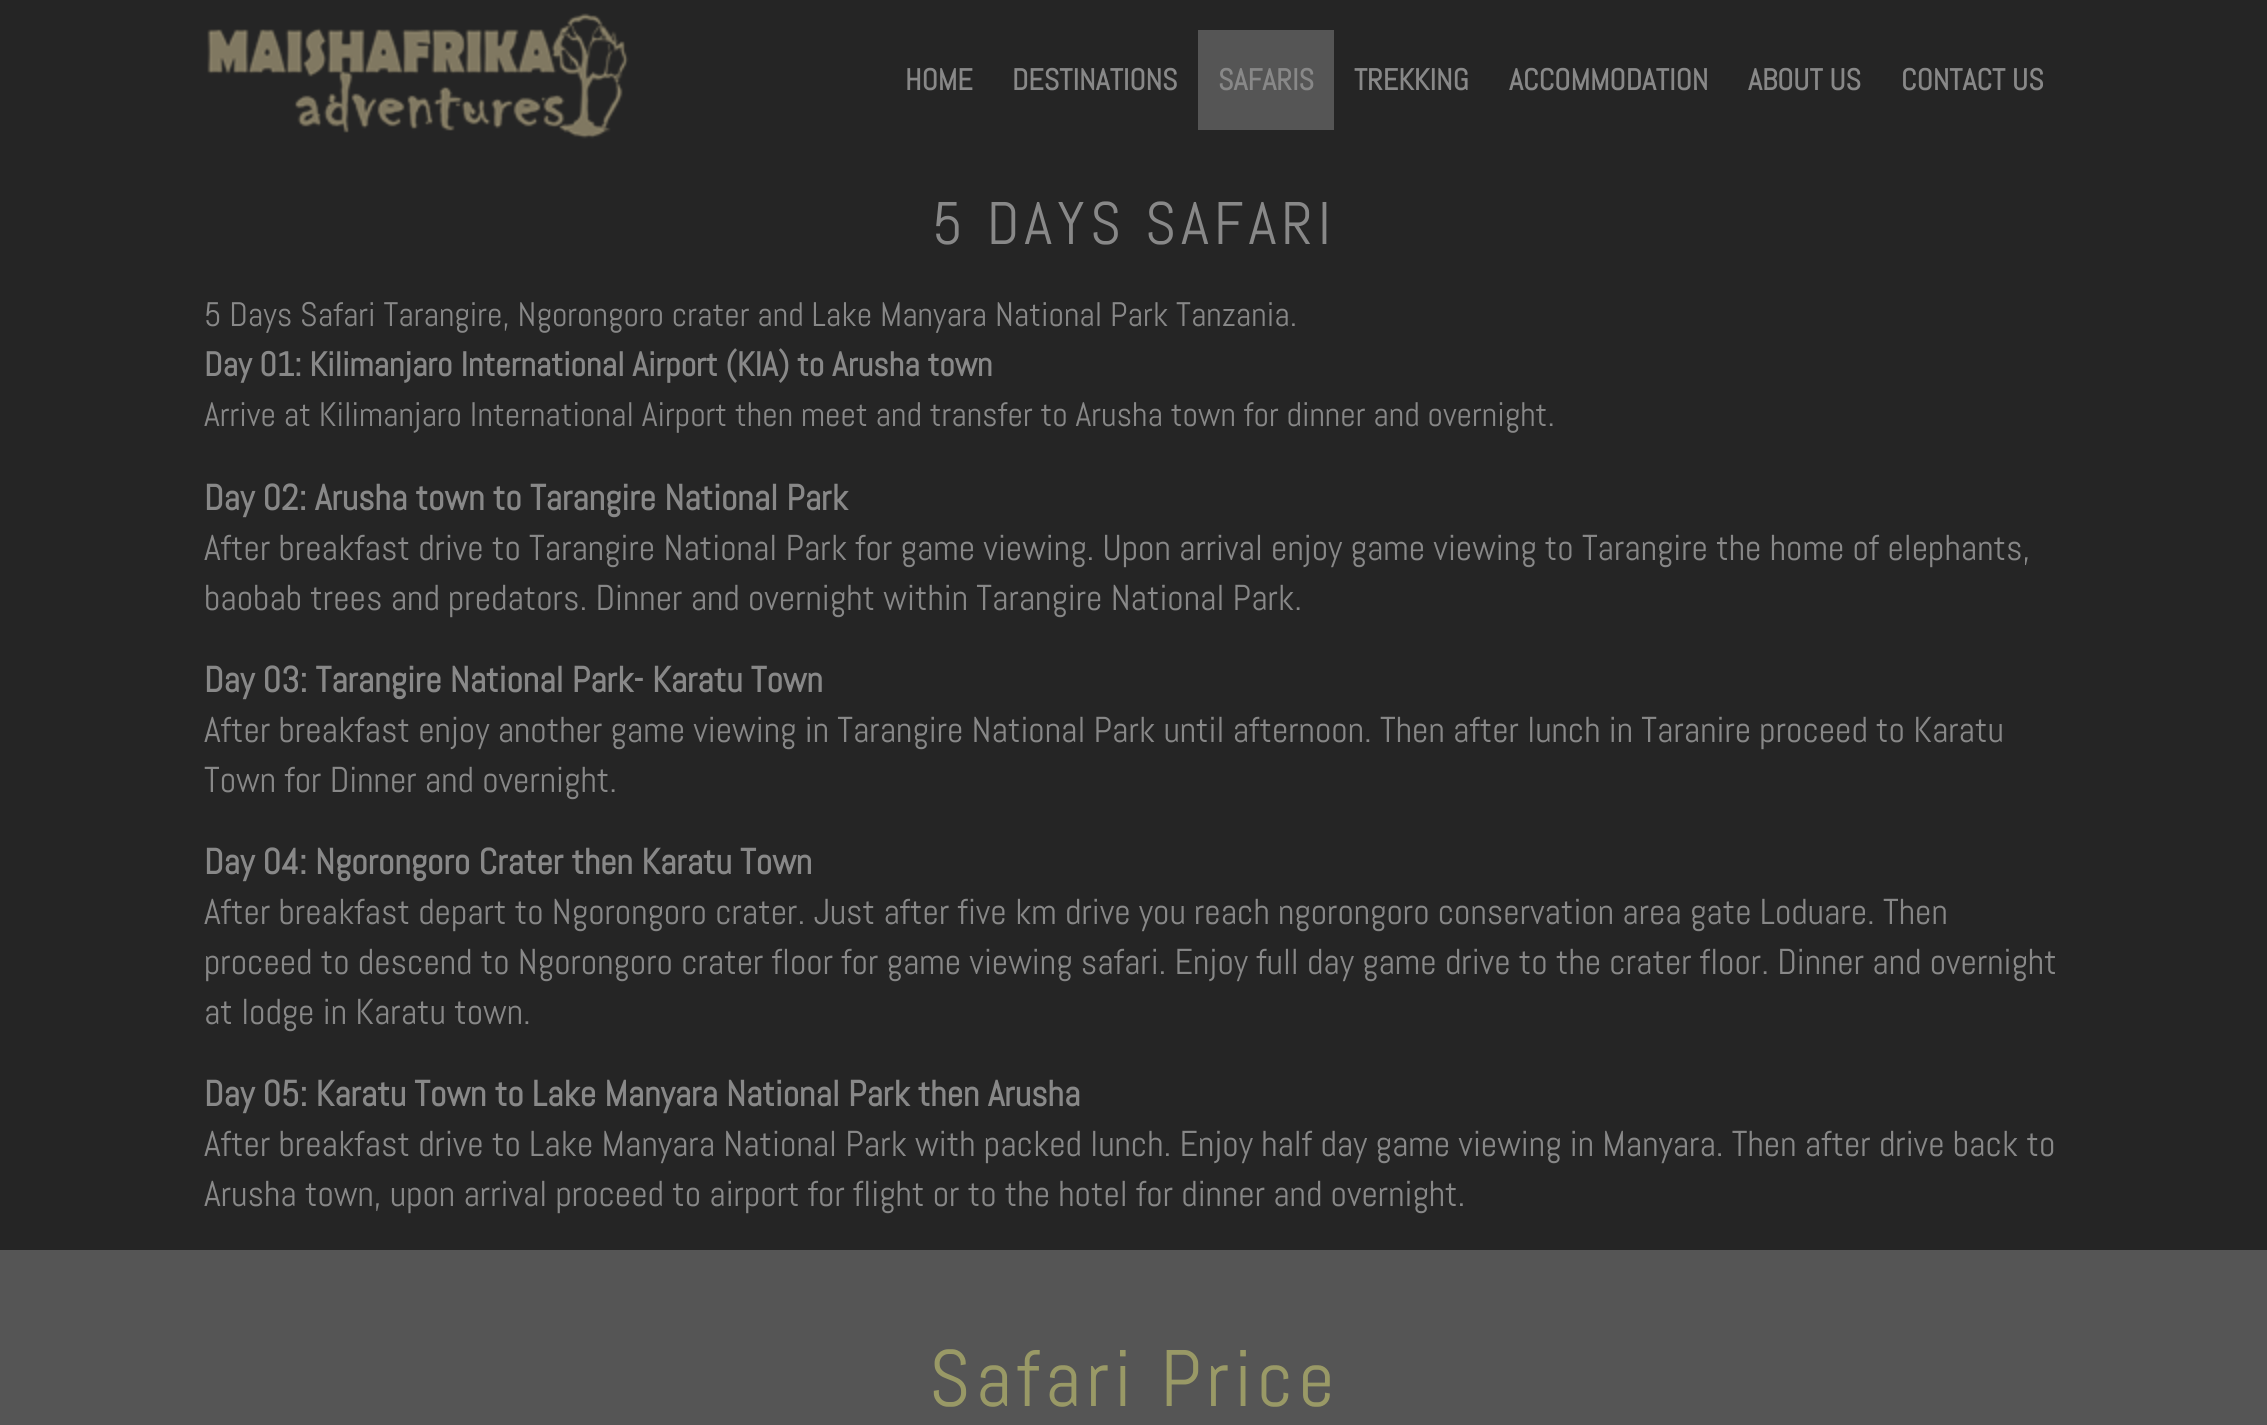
#include <cairo.h>
#include <math.h>
#include <stddef.h>

static cairo_t *ctx;

static void use_color(int r, int g, int b) {
    cairo_set_source_rgb(ctx, r / 255.0, g / 255.0, b / 255.0);
}

static void spaced_text(double x, double y, const char *s, double letter, double word) {
    cairo_move_to(ctx, x, y);
    while (*s) {
        char ch[5] = {0};
        int n = 0;
        do ch[n++] = *s++; while ((*s & 0xC0) == 0x80);
        cairo_show_text(ctx, ch);
        cairo_rel_move_to(ctx, letter + word * (*ch == ' '), 0);
    }
}

static void picture(const char *path, double x, double y, double w, double h) {
    cairo_surface_t *image = cairo_image_surface_create_from_png(path);
    cairo_save(ctx);
    cairo_set_source_surface(ctx, image, x, y);
    cairo_rectangle(ctx, x, y, w, h);
    cairo_fill(ctx);
    cairo_restore(ctx);
    cairo_surface_destroy(image);
}

int main(void) {
    cairo_surface_t *surface = cairo_image_surface_create(CAIRO_FORMAT_RGB24, 2267, 1425);
    ctx = cairo_create(surface);
    cairo_font_options_t *options = cairo_font_options_create();
    cairo_font_options_set_hint_metrics(options, CAIRO_HINT_METRICS_OFF);
    cairo_font_options_set_hint_style(options, CAIRO_HINT_STYLE_NONE);
    cairo_set_font_options(ctx, options);
    cairo_set_miter_limit(ctx, 4);
    use_color(37, 37, 37);
    cairo_paint(ctx);
    picture("img1.png", 207, 13, 422, 126);
    cairo_select_font_face(ctx, "Abel", CAIRO_FONT_SLANT_NORMAL, CAIRO_FONT_WEIGHT_BOLD);
    cairo_set_font_size(ctx, 30);
    use_color(136, 136, 136);
    cairo_move_to(ctx, 905, 90);
    cairo_show_text(ctx, "HOME");
    cairo_move_to(ctx, 1012, 90);
    cairo_show_text(ctx, "DESTINATIONS");
    use_color(85, 85, 85);
    cairo_rectangle(ctx, 1198, 30, 136, 100);
    cairo_fill(ctx);
    use_color(136, 136, 136);
    cairo_move_to(ctx, 1218, 90);
    cairo_show_text(ctx, "SAFARIS");
    cairo_move_to(ctx, 1354, 90);
    cairo_show_text(ctx, "TREKKING");
    cairo_move_to(ctx, 1509, 90);
    cairo_show_text(ctx, "ACCOMMODATION");
    cairo_move_to(ctx, 1748, 90);
    cairo_show_text(ctx, "ABOUT US");
    cairo_move_to(ctx, 1901, 90);
    cairo_show_text(ctx, "CONTACT US");
    cairo_select_font_face(ctx, "Abel", CAIRO_FONT_SLANT_NORMAL, CAIRO_FONT_WEIGHT_NORMAL);
    cairo_set_font_size(ctx, 60);
    spaced_text(932, 244, "5 DAYS SAFARI", 5, 0);
    cairo_set_font_size(ctx, 34);
    cairo_move_to(ctx, 204, 326);
    cairo_show_text(ctx, "5 Days Safari Tarangire, Ngorongoro crater and Lake Manyara National Park Tanzania.");
    cairo_select_font_face(ctx, "Abel", CAIRO_FONT_SLANT_NORMAL, CAIRO_FONT_WEIGHT_BOLD);
    cairo_move_to(ctx, 204, 376);
    cairo_show_text(ctx, "Day 01: Kilimanjaro International Airport (KIA) to Arusha town");
    cairo_select_font_face(ctx, "Abel", CAIRO_FONT_SLANT_NORMAL, CAIRO_FONT_WEIGHT_NORMAL);
    cairo_move_to(ctx, 204, 426);
    cairo_show_text(ctx, "Arrive at Kilimanjaro International Airport then meet and transfer to Arusha town for dinner and overnight.");
    cairo_select_font_face(ctx, "Abel", CAIRO_FONT_SLANT_NORMAL, CAIRO_FONT_WEIGHT_BOLD);
    cairo_set_font_size(ctx, 36);
    cairo_move_to(ctx, 204, 510);
    cairo_show_text(ctx, "Day 02: Arusha town to Tarangire National Park");
    cairo_select_font_face(ctx, "Abel", CAIRO_FONT_SLANT_NORMAL, CAIRO_FONT_WEIGHT_NORMAL);
    cairo_move_to(ctx, 204, 560);
    cairo_show_text(ctx, "After breakfast drive to Tarangire National Park for game viewing. Upon arrival enjoy game viewing to Tarangire the home of elephants,");
    cairo_move_to(ctx, 204, 610);
    cairo_show_text(ctx, "baobab trees and predators. Dinner and overnight within Tarangire National Park.");
    cairo_select_font_face(ctx, "Abel", CAIRO_FONT_SLANT_NORMAL, CAIRO_FONT_WEIGHT_BOLD);
    cairo_move_to(ctx, 204, 692);
    cairo_show_text(ctx, "Day 03: Tarangire National Park- Karatu Town");
    cairo_select_font_face(ctx, "Abel", CAIRO_FONT_SLANT_NORMAL, CAIRO_FONT_WEIGHT_NORMAL);
    cairo_move_to(ctx, 204, 742);
    cairo_show_text(ctx, "After breakfast enjoy another game viewing in Tarangire National Park until afternoon. Then after lunch in Taranire proceed to Karatu");
    cairo_move_to(ctx, 204, 792);
    cairo_show_text(ctx, "Town for Dinner and overnight.");
    cairo_select_font_face(ctx, "Abel", CAIRO_FONT_SLANT_NORMAL, CAIRO_FONT_WEIGHT_BOLD);
    cairo_move_to(ctx, 204, 874);
    cairo_show_text(ctx, "Day 04: Ngorongoro Crater then Karatu Town");
    cairo_select_font_face(ctx, "Abel", CAIRO_FONT_SLANT_NORMAL, CAIRO_FONT_WEIGHT_NORMAL);
    cairo_move_to(ctx, 204, 924);
    cairo_show_text(ctx, "After breakfast depart to Ngorongoro crater. Just after five km drive you reach ngorongoro conservation area gate Loduare. Then");
    cairo_move_to(ctx, 204, 974);
    cairo_show_text(ctx, "proceed to descend to Ngorongoro crater floor for game viewing safari. Enjoy full day game drive to the crater floor. Dinner and overnight");
    cairo_move_to(ctx, 204, 1024);
    cairo_show_text(ctx, "at lodge in Karatu town.");
    cairo_select_font_face(ctx, "Abel", CAIRO_FONT_SLANT_NORMAL, CAIRO_FONT_WEIGHT_BOLD);
    cairo_move_to(ctx, 204, 1106);
    cairo_show_text(ctx, "Day 05: Karatu Town to Lake Manyara National Park then Arusha");
    cairo_select_font_face(ctx, "Abel", CAIRO_FONT_SLANT_NORMAL, CAIRO_FONT_WEIGHT_NORMAL);
    cairo_move_to(ctx, 204, 1156);
    cairo_show_text(ctx, "After breakfast drive to Lake Manyara National Park with packed lunch. Enjoy half day game viewing in Manyara. Then after drive back to");
    cairo_move_to(ctx, 204, 1206);
    cairo_show_text(ctx, "Arusha town, upon arrival proceed to airport for flight or to the hotel for dinner and overnight.");
    use_color(85, 85, 85);
    cairo_rectangle(ctx, 0, 1250, 2267, 175);
    cairo_fill(ctx);
    cairo_set_font_size(ctx, 80);
    use_color(153, 153, 102);
    spaced_text(929, 1406, "Safari Price", 5, 0);
    cairo_surface_write_to_png(surface, "result.png");
    cairo_font_options_destroy(options);
    cairo_destroy(ctx);
    cairo_surface_destroy(surface);
    return 0;
}
